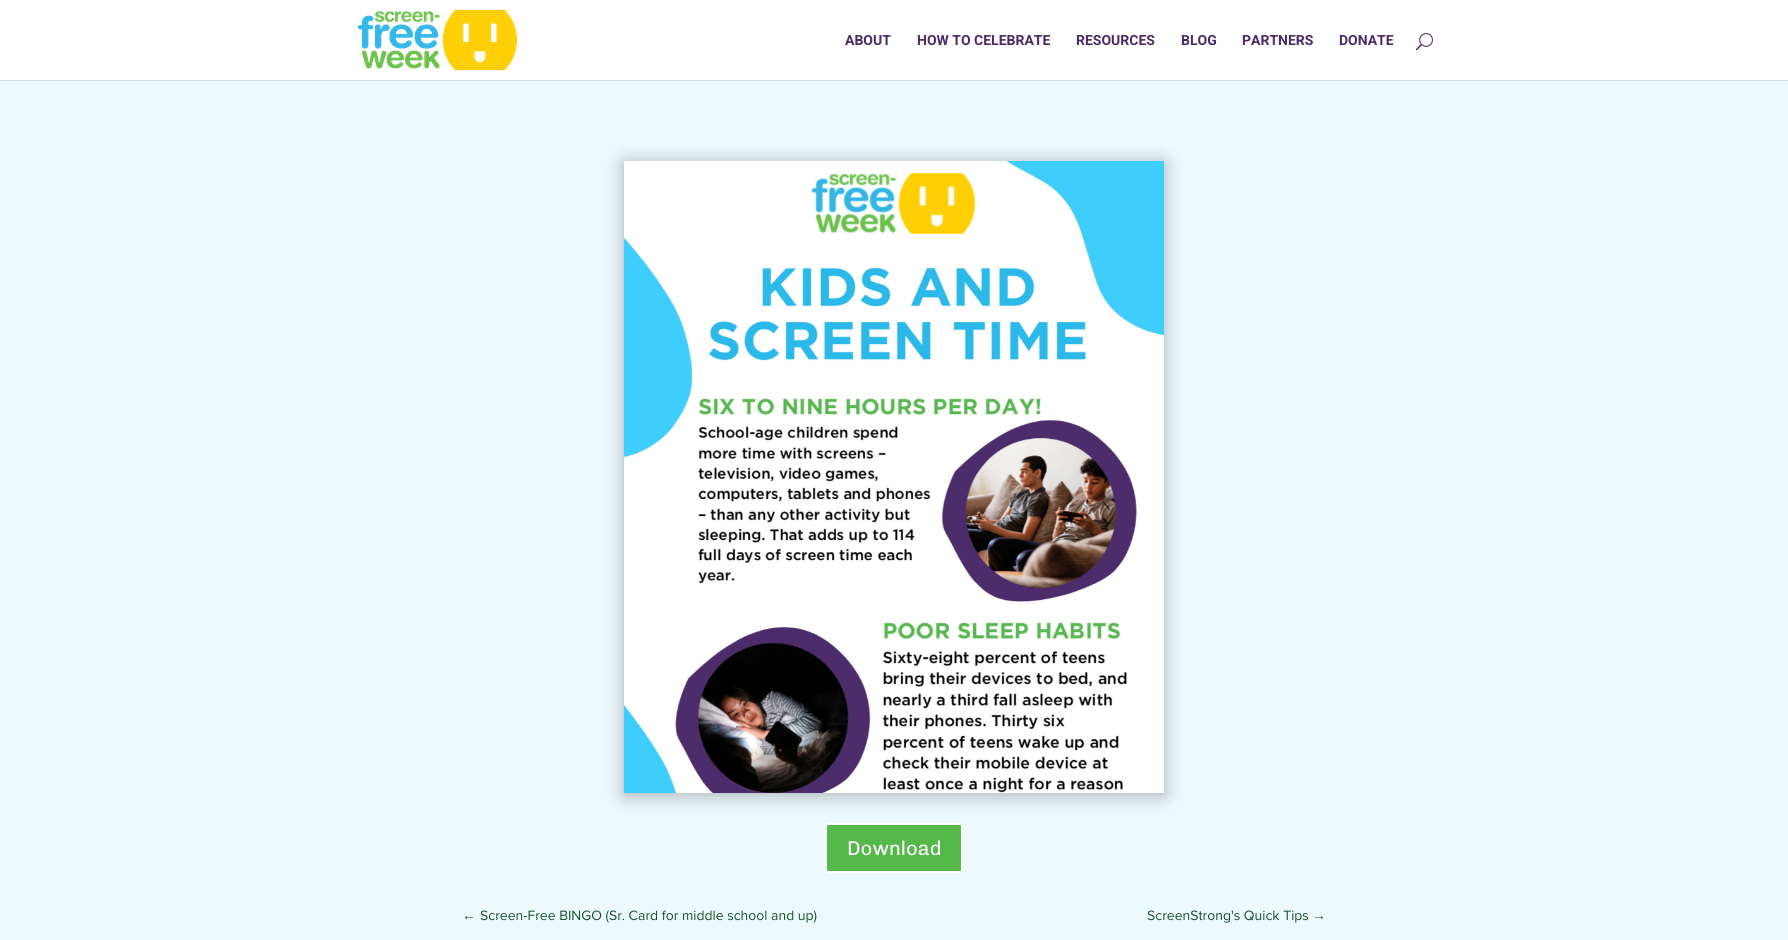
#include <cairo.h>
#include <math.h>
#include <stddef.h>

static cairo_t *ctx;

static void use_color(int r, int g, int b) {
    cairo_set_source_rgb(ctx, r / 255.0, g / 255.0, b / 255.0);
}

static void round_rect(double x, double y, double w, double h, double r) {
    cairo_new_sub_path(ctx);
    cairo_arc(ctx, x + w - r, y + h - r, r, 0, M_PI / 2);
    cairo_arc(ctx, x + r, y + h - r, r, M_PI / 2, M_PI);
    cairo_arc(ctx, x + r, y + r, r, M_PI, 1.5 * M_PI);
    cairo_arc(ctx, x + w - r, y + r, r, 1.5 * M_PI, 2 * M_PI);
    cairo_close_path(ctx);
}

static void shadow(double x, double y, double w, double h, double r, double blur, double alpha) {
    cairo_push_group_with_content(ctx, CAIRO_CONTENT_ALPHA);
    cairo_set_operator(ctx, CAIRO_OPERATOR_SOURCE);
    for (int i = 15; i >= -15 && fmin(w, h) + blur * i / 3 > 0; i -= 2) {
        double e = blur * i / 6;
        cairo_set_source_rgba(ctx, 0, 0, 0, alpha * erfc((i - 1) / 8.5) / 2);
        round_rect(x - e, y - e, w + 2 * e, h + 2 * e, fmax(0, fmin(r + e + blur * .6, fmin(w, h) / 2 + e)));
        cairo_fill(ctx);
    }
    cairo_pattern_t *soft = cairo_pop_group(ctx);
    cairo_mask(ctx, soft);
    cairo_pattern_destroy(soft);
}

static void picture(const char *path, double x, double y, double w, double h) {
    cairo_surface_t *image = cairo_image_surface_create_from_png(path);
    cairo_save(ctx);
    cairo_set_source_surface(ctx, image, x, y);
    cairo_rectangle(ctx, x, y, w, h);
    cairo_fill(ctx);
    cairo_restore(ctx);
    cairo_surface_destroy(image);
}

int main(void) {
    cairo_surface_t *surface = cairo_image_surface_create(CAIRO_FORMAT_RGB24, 1788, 940);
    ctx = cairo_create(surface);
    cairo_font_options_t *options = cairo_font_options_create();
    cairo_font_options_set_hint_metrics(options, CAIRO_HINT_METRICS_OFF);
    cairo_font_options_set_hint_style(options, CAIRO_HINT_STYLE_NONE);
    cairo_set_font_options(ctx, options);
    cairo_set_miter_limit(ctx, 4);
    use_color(255, 255, 255);
    cairo_paint(ctx);
    use_color(212, 224, 230);
    cairo_rectangle(ctx, 0, 80, 1788, 1);
    cairo_fill(ctx);
    picture("img1.png", 358, 10, 159, 60);
    cairo_select_font_face(ctx, "Roboto", CAIRO_FONT_SLANT_NORMAL, CAIRO_FONT_WEIGHT_BOLD);
    cairo_set_font_size(ctx, 14);
    use_color(76, 42, 107);
    cairo_move_to(ctx, 845, 45);
    cairo_show_text(ctx, "ABOUT");
    cairo_move_to(ctx, 917, 45);
    cairo_show_text(ctx, "HOW TO CELEBRATE");
    cairo_move_to(ctx, 1076, 45);
    cairo_show_text(ctx, "RESOURCES");
    cairo_move_to(ctx, 1181, 45);
    cairo_show_text(ctx, "BLOG");
    cairo_move_to(ctx, 1242, 45);
    cairo_show_text(ctx, "PARTNERS");
    cairo_move_to(ctx, 1339, 45);
    cairo_show_text(ctx, "DONATE");
    picture("img2.png", 1416, 33, 17, 18);
    use_color(236, 249, 255);
    cairo_rectangle(ctx, 0, 81, 1788, 859);
    cairo_fill(ctx);
    use_color(0, 0, 0);
    shadow(624, 163, 540, 632, 0, 9, 0.3);
    picture("img3.png", 624, 161, 540, 632);
    use_color(85, 185, 74);
    round_rect(826, 824, 136, 48, 2);
    cairo_fill_preserve(ctx);
    use_color(255, 255, 255);
    cairo_stroke(ctx);
    cairo_select_font_face(ctx, "Chivo Medium", CAIRO_FONT_SLANT_NORMAL, CAIRO_FONT_WEIGHT_NORMAL);
    cairo_set_font_size(ctx, 20);
    cairo_move_to(ctx, 847, 855);
    cairo_show_text(ctx, "Download");
    cairo_select_font_face(ctx, "Liberation Sans", CAIRO_FONT_SLANT_NORMAL, CAIRO_FONT_WEIGHT_NORMAL);
    cairo_set_font_size(ctx, 14);
    use_color(24, 85, 38);
    cairo_move_to(ctx, 462, 920);
    cairo_show_text(ctx, "←");
    cairo_select_font_face(ctx, "Proxima Nova", CAIRO_FONT_SLANT_NORMAL, CAIRO_FONT_WEIGHT_NORMAL);
    cairo_move_to(ctx, 480, 920);
    cairo_show_text(ctx, "Screen-Free BINGO (Sr. Card for middle school and up)");
    cairo_move_to(ctx, 1147, 920);
    cairo_show_text(ctx, "ScreenStrong's Quick Tips");
    cairo_select_font_face(ctx, "Liberation Sans", CAIRO_FONT_SLANT_NORMAL, CAIRO_FONT_WEIGHT_NORMAL);
    cairo_move_to(ctx, 1312, 920);
    cairo_show_text(ctx, "→");
    cairo_surface_write_to_png(surface, "result.png");
    cairo_font_options_destroy(options);
    cairo_destroy(ctx);
    cairo_surface_destroy(surface);
    return 0;
}
